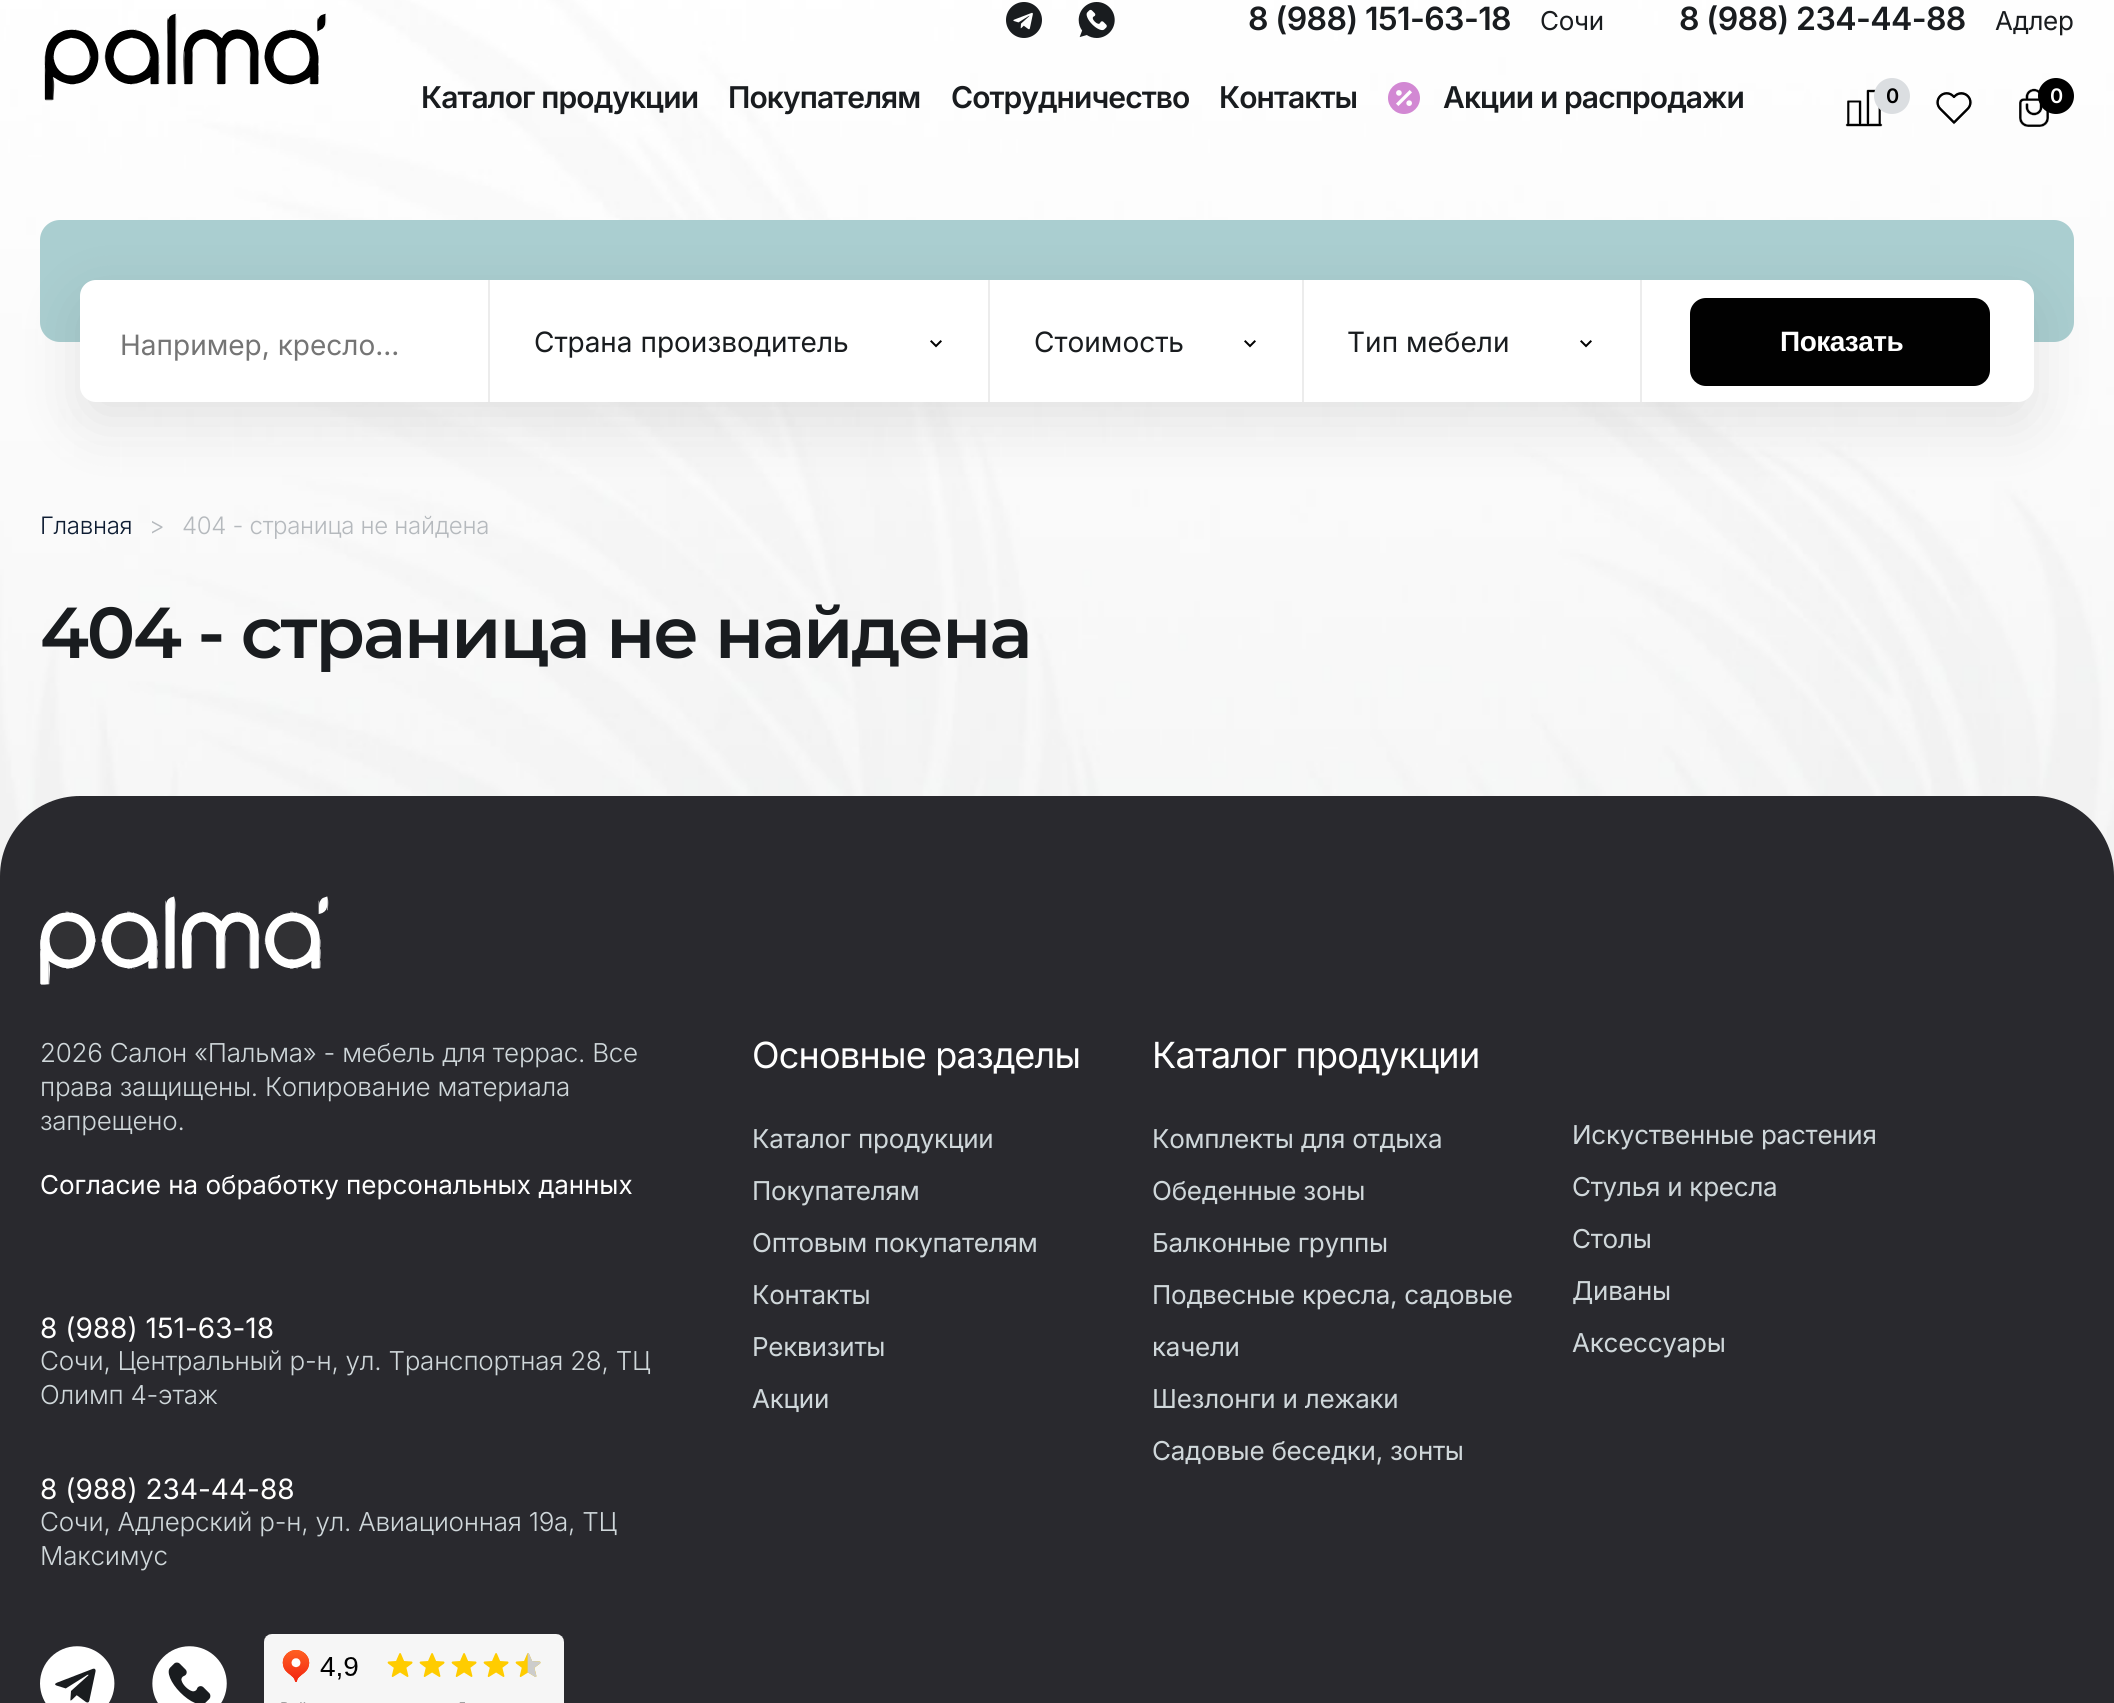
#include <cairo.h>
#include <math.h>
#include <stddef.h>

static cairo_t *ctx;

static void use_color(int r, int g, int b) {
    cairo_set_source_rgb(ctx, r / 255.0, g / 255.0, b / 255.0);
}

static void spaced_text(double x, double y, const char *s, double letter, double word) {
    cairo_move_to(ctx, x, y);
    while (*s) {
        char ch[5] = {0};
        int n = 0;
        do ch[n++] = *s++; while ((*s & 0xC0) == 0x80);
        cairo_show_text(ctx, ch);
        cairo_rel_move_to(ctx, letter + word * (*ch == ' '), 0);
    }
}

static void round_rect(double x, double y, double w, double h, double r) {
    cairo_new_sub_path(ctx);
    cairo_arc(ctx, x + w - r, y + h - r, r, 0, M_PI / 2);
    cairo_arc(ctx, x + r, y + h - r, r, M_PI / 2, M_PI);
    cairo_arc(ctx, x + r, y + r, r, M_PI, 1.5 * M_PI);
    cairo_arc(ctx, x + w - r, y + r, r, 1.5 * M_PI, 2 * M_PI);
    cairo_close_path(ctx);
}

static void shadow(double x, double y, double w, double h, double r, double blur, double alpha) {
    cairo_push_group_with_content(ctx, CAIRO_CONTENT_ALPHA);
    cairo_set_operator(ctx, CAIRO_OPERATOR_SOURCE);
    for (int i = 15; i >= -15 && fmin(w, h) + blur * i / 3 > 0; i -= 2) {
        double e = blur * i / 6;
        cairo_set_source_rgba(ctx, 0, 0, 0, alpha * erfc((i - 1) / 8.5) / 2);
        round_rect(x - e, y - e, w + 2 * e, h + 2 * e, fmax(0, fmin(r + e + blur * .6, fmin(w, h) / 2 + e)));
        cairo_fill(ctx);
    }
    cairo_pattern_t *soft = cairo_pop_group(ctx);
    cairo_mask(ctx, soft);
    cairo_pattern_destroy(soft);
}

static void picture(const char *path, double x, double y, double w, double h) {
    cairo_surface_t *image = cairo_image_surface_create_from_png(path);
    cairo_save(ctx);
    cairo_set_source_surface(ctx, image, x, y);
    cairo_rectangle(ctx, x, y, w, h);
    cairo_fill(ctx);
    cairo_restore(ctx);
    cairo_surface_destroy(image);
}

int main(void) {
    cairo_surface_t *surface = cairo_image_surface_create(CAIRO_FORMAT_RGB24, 2114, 1703);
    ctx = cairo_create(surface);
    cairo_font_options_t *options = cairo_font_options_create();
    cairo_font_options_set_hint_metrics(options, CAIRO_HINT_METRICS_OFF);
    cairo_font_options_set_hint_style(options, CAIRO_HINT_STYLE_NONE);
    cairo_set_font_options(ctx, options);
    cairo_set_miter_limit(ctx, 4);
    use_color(255, 255, 255);
    cairo_paint(ctx);
    picture("img1.png", 0, 0, 2114, 876);
    picture("img2.png", 44, 13, 283, 88);
    picture("img3.png", 1006, 2, 36, 36);
    picture("img4.png", 1078, 2, 37, 36);
    cairo_select_font_face(ctx, "Inter SemiBold", CAIRO_FONT_SLANT_NORMAL, CAIRO_FONT_WEIGHT_NORMAL);
    cairo_set_font_size(ctx, 32);
    use_color(25, 28, 31);
    spaced_text(1248, 30, "8 (988) 151-63-18", -0.6, 0);
    cairo_select_font_face(ctx, "Inter", CAIRO_FONT_SLANT_NORMAL, CAIRO_FONT_WEIGHT_NORMAL);
    cairo_set_font_size(ctx, 26);
    spaced_text(1540, 30, "Сочи", -0.25, 0);
    cairo_select_font_face(ctx, "Inter SemiBold", CAIRO_FONT_SLANT_NORMAL, CAIRO_FONT_WEIGHT_NORMAL);
    cairo_set_font_size(ctx, 32);
    spaced_text(1679, 30, "8 (988) 234-44-88", -0.6, 0);
    cairo_select_font_face(ctx, "Inter", CAIRO_FONT_SLANT_NORMAL, CAIRO_FONT_WEIGHT_NORMAL);
    cairo_set_font_size(ctx, 26);
    spaced_text(1995, 30, "Адлер", -0.25, 0);
    cairo_select_font_face(ctx, "Inter SemiBold", CAIRO_FONT_SLANT_NORMAL, CAIRO_FONT_WEIGHT_NORMAL);
    cairo_set_font_size(ctx, 30);
    spaced_text(421, 108, "Каталог продукции", -0.9, 0);
    spaced_text(728, 108, "Покупателям", -0.9, 0);
    spaced_text(951, 108, "Сотрудничество", -0.9, 0);
    spaced_text(1219, 108, "Контакты", -0.9, 0);
    picture("img5.png", 1388, 82, 32, 32);
    spaced_text(1443, 108, "Акции и распродажи", -0.9, 0);
    picture("img6.png", 1845, 89, 38, 38);
    use_color(219, 222, 225);
    cairo_arc(ctx, 1892, 96, 18, 0, 2 * M_PI);
    cairo_fill(ctx);
    cairo_set_font_size(ctx, 20);
    use_color(0, 0, 0);
    spaced_text(1886, 103, "0", -1, 0);
    picture("img7.png", 1935, 91, 38, 34);
    picture("img8.png", 2019, 88, 30, 39);
    cairo_arc(ctx, 2056, 96, 18, 0, 2 * M_PI);
    cairo_fill(ctx);
    use_color(255, 255, 255);
    spaced_text(2050, 103, "0", -1, 0);
    use_color(170, 206, 208);
    round_rect(40, 220, 2034, 122, 20);
    cairo_fill(ctx);
    use_color(0, 0, 0);
    shadow(80, 300, 1954, 122, 16, 30, 0.1);
    use_color(255, 255, 255);
    round_rect(80, 280, 1954, 122, 16);
    cairo_fill(ctx);
    cairo_select_font_face(ctx, "Inter", CAIRO_FONT_SLANT_NORMAL, CAIRO_FONT_WEIGHT_NORMAL);
    cairo_set_font_size(ctx, 28);
    use_color(117, 117, 117);
    cairo_move_to(ctx, 120, 355);
    cairo_show_text(ctx, "Например, кресло...");
    picture("img9.png", 930, 340, 12, 8);
    use_color(236, 236, 236);
    cairo_rectangle(ctx, 488, 280, 2, 122);
    cairo_fill(ctx);
    use_color(25, 28, 31);
    cairo_move_to(ctx, 534, 352);
    cairo_show_text(ctx, "Страна производитель");
    picture("img9.png", 1244, 340, 12, 8);
    use_color(236, 236, 236);
    cairo_rectangle(ctx, 988, 280, 2, 122);
    cairo_fill(ctx);
    use_color(25, 28, 31);
    cairo_move_to(ctx, 1034, 352);
    cairo_show_text(ctx, "Стоимость");
    picture("img9.png", 1580, 340, 12, 8);
    use_color(236, 236, 236);
    cairo_rectangle(ctx, 1640, 280, 2, 122);
    cairo_fill(ctx);
    cairo_rectangle(ctx, 1302, 280, 2, 122);
    cairo_fill(ctx);
    use_color(25, 28, 31);
    cairo_move_to(ctx, 1347, 352);
    cairo_show_text(ctx, "Тип мебели");
    use_color(1, 1, 1);
    round_rect(1690, 298, 300, 88, 16);
    cairo_fill(ctx);
    cairo_select_font_face(ctx, "Liberation Sans", CAIRO_FONT_SLANT_NORMAL, CAIRO_FONT_WEIGHT_BOLD);
    use_color(255, 255, 255);
    spaced_text(1780, 351, "Показать", -0.5, 0);
    cairo_select_font_face(ctx, "Inter Light", CAIRO_FONT_SLANT_NORMAL, CAIRO_FONT_WEIGHT_NORMAL);
    cairo_set_font_size(ctx, 24);
    use_color(13, 28, 50);
    spaced_text(40, 534, "Главная", -0.3, 0);
    use_color(181, 185, 189);
    spaced_text(149, 534, ">", -0.3, 0);
    spaced_text(182, 534, "404 - страница не найдена", -0.3, 0);
    cairo_select_font_face(ctx, "Montserrat SemiBold", CAIRO_FONT_SLANT_NORMAL, CAIRO_FONT_WEIGHT_NORMAL);
    cairo_set_font_size(ctx, 72);
    use_color(25, 28, 31);
    spaced_text(40, 658, "404 - страница не найдена", -2.15, 0);
    use_color(41, 41, 46);
    cairo_new_path(ctx);
    cairo_move_to(ctx, 80, 796);
    cairo_line_to(ctx, 2034, 796);
    cairo_curve_to(ctx, 2078, 796, 2114, 832, 2114, 876);
    cairo_line_to(ctx, 2114, 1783);
    cairo_line_to(ctx, 0, 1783);
    cairo_line_to(ctx, 0, 876);
    cairo_curve_to(ctx, 0, 832, 36, 796, 80, 796);
    cairo_close_path(ctx);
    cairo_fill(ctx);
    picture("img10.png", 40, 896, 289, 89);
    cairo_select_font_face(ctx, "Inter Light", CAIRO_FONT_SLANT_NORMAL, CAIRO_FONT_WEIGHT_NORMAL);
    cairo_set_font_size(ctx, 26);
    use_color(207, 215, 218);
    spaced_text(40, 1062, "2026 Салон «Пальма» - мебель для террас. Все", -0.25, 0);
    spaced_text(40, 1096, "права защищены. Копирование материала", -0.25, 0);
    spaced_text(40, 1130, "запрещено.", -0.25, 0);
    cairo_select_font_face(ctx, "Inter", CAIRO_FONT_SLANT_NORMAL, CAIRO_FONT_WEIGHT_NORMAL);
    use_color(255, 255, 255);
    cairo_move_to(ctx, 40, 1194);
    cairo_show_text(ctx, "Согласие на обработку персональных данных");
    cairo_set_font_size(ctx, 28);
    cairo_move_to(ctx, 40, 1338);
    cairo_show_text(ctx, "8 (988) 151-63-18");
    cairo_select_font_face(ctx, "Inter Light", CAIRO_FONT_SLANT_NORMAL, CAIRO_FONT_WEIGHT_NORMAL);
    cairo_set_font_size(ctx, 26);
    use_color(207, 215, 218);
    spaced_text(40, 1370, "Сочи, Центральный р-н, ул. Транспортная 28, ТЦ", -0.25, 0);
    spaced_text(40, 1404, "Олимп 4-этаж", -0.25, 0);
    cairo_select_font_face(ctx, "Inter", CAIRO_FONT_SLANT_NORMAL, CAIRO_FONT_WEIGHT_NORMAL);
    cairo_set_font_size(ctx, 28);
    use_color(255, 255, 255);
    cairo_move_to(ctx, 40, 1499);
    cairo_show_text(ctx, "8 (988) 234-44-88");
    cairo_select_font_face(ctx, "Inter Light", CAIRO_FONT_SLANT_NORMAL, CAIRO_FONT_WEIGHT_NORMAL);
    cairo_set_font_size(ctx, 26);
    use_color(207, 215, 218);
    spaced_text(40, 1531, "Сочи, Адлерский р-н, ул. Авиационная 19а, ТЦ", -0.25, 0);
    spaced_text(40, 1565, "Максимус", -0.25, 0);
    cairo_select_font_face(ctx, "Inter", CAIRO_FONT_SLANT_NORMAL, CAIRO_FONT_WEIGHT_NORMAL);
    cairo_set_font_size(ctx, 36);
    use_color(255, 255, 255);
    spaced_text(752, 1068, "Основные разделы", -0.75, 0);
    cairo_set_font_size(ctx, 26);
    use_color(207, 215, 218);
    spaced_text(752, 1148, "Каталог продукции", -0.25, 0);
    spaced_text(752, 1200, "Покупателям", -0.25, 0);
    spaced_text(752, 1252, "Оптовым покупателям", -0.25, 0);
    spaced_text(752, 1304, "Контакты", -0.25, 0);
    spaced_text(752, 1356, "Реквизиты", -0.25, 0);
    spaced_text(752, 1408, "Акции", -0.25, 0);
    cairo_set_font_size(ctx, 36);
    use_color(255, 255, 255);
    spaced_text(1152, 1068, "Каталог продукции", -0.75, 0);
    cairo_set_font_size(ctx, 26);
    use_color(207, 215, 218);
    spaced_text(1152, 1148, "Комплекты для отдыха", -0.25, 0);
    spaced_text(1152, 1200, "Обеденные зоны", -0.25, 0);
    spaced_text(1152, 1252, "Балконные группы", -0.25, 0);
    spaced_text(1152, 1304, "Подвесные кресла, садовые", -0.25, 0);
    spaced_text(1152, 1356, "качели", -0.25, 0);
    spaced_text(1152, 1408, "Шезлонги и лежаки", -0.25, 0);
    spaced_text(1152, 1460, "Садовые беседки, зонты", -0.25, 0);
    spaced_text(1572, 1144, "Искуственные растения", -0.25, 0);
    spaced_text(1572, 1196, "Стулья и кресла", -0.25, 0);
    spaced_text(1572, 1248, "Столы", -0.25, 0);
    spaced_text(1572, 1300, "Диваны", -0.25, 0);
    spaced_text(1572, 1352, "Аксесcуары", -0.25, 0);
    picture("img11.png", 40, 1646, 75, 57);
    picture("img12.png", 152, 1646, 75, 57);
    picture("img13.png", 264, 1634, 300, 69);
    cairo_surface_write_to_png(surface, "result.png");
    cairo_font_options_destroy(options);
    cairo_destroy(ctx);
    cairo_surface_destroy(surface);
    return 0;
}
